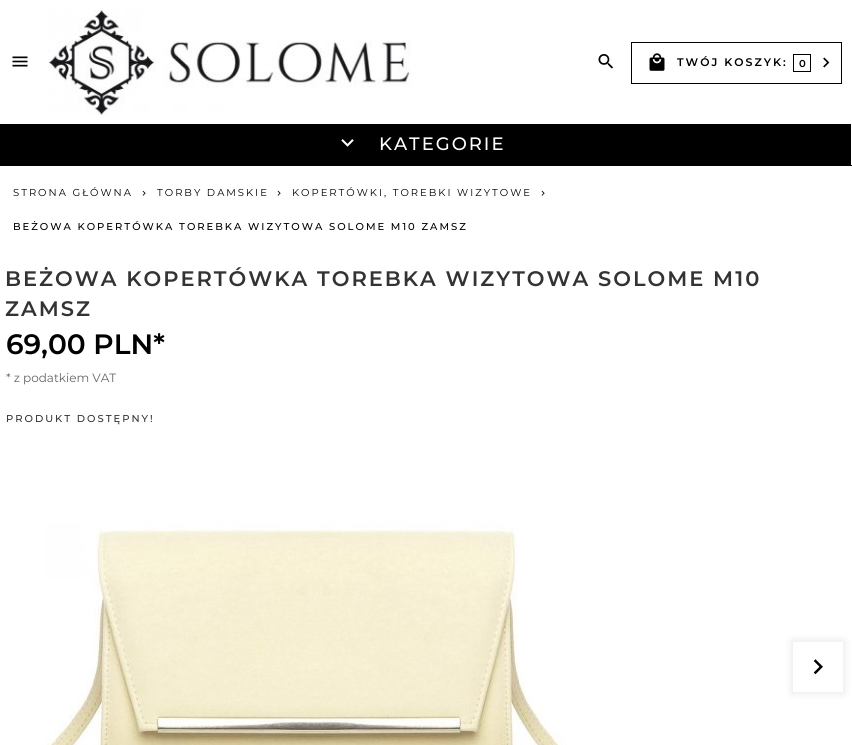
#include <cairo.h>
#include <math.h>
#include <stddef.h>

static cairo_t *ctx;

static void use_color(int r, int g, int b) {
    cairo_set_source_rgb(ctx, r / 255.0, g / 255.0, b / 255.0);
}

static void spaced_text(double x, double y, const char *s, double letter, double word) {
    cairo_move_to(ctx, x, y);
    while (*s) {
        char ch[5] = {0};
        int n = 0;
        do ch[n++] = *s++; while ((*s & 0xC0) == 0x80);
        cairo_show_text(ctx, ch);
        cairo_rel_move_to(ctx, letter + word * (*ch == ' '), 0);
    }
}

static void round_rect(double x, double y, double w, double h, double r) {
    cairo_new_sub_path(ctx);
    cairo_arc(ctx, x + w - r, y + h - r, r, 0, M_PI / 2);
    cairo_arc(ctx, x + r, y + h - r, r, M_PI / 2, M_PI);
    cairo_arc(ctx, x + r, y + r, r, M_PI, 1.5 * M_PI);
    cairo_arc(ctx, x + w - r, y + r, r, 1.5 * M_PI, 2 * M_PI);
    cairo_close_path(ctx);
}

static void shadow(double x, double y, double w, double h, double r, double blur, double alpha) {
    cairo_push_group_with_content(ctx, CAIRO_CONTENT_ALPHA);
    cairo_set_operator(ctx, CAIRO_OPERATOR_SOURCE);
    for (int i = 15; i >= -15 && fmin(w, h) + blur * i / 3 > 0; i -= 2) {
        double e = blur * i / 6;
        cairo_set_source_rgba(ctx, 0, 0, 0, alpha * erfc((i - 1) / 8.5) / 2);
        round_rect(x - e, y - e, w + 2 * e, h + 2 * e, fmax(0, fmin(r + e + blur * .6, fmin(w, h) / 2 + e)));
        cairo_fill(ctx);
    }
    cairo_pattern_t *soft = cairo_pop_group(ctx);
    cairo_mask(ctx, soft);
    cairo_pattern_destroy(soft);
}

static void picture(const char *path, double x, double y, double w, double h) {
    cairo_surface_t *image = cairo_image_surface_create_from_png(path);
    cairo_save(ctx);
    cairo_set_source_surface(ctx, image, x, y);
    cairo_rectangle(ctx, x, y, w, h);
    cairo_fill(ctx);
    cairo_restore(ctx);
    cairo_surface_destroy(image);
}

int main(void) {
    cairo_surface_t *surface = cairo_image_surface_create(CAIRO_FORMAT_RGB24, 852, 745);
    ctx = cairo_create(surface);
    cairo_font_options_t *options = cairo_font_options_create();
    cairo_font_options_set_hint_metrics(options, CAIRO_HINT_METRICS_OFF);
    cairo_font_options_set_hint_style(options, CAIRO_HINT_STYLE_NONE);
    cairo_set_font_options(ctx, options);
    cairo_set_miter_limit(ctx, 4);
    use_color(255, 255, 255);
    cairo_paint(ctx);
    use_color(0, 0, 0);
    cairo_rectangle(ctx, 851, 165, 1, 1);
    cairo_fill(ctx);
    picture("img1.png", 12, 56, 16, 11);
    picture("img2.png", 48, 10, 363, 105);
    picture("img3.png", 598, 54, 15, 15);
    cairo_rectangle(ctx, 631.5, 42.5, 210, 41);
    cairo_set_line_width(ctx, 1);
    cairo_stroke(ctx);
    picture("img4.png", 649, 53, 16, 18);
    cairo_select_font_face(ctx, "Montserrat SemiBold", CAIRO_FONT_SLANT_NORMAL, CAIRO_FONT_WEIGHT_NORMAL);
    cairo_set_font_size(ctx, 11);
    spaced_text(677, 66, "TWÓJ KOSZYK:", 2, 0);
    cairo_rectangle(ctx, 793.5, 54.5, 17, 17);
    cairo_stroke(ctx);
    cairo_set_font_size(ctx, 10);
    cairo_move_to(ctx, 799, 67);
    cairo_show_text(ctx, "0");
    picture("img5.png", 823, 57, 7, 11);
    cairo_rectangle(ctx, 0, 124, 851, 42);
    cairo_fill(ctx);
    picture("img6.png", 341, 139, 13, 8);
    cairo_select_font_face(ctx, "Montserrat Medium", CAIRO_FONT_SLANT_NORMAL, CAIRO_FONT_WEIGHT_NORMAL);
    cairo_set_font_size(ctx, 18);
    use_color(255, 255, 255);
    spaced_text(379, 150, "KATEGORIE", 2, 0);
    cairo_select_font_face(ctx, "Montserrat", CAIRO_FONT_SLANT_NORMAL, CAIRO_FONT_WEIGHT_NORMAL);
    cairo_set_font_size(ctx, 10);
    use_color(0, 0, 0);
    spaced_text(13, 196, "STRONA GŁÓWNA", 2, 0);
    picture("img7.png", 142, 190, 4, 6);
    spaced_text(157, 196, "TORBY DAMSKIE", 2, 0);
    picture("img7.png", 277, 190, 4, 6);
    spaced_text(292, 196, "KOPERTÓWKI, TOREBKI WIZYTOWE", 2, 0);
    picture("img7.png", 541, 190, 4, 6);
    cairo_select_font_face(ctx, "Montserrat Medium", CAIRO_FONT_SLANT_NORMAL, CAIRO_FONT_WEIGHT_NORMAL);
    spaced_text(13, 230, "BEŻOWA KOPERTÓWKA TOREBKA WIZYTOWA SOLOME M10 ZAMSZ", 2, 0);
    cairo_select_font_face(ctx, "Montserrat SemiBold", CAIRO_FONT_SLANT_NORMAL, CAIRO_FONT_WEIGHT_NORMAL);
    cairo_set_font_size(ctx, 21);
    use_color(51, 51, 51);
    spaced_text(5, 286, "BEŻOWA KOPERTÓWKA TOREBKA WIZYTOWA SOLOME M10", 2, 0);
    spaced_text(5, 316, "ZAMSZ", 2, 0);
    cairo_set_font_size(ctx, 28);
    use_color(0, 0, 0);
    cairo_move_to(ctx, 6, 354);
    cairo_show_text(ctx, "69,00 PLN*");
    cairo_select_font_face(ctx, "Montserrat", CAIRO_FONT_SLANT_NORMAL, CAIRO_FONT_WEIGHT_NORMAL);
    cairo_set_font_size(ctx, 12);
    use_color(102, 102, 102);
    cairo_move_to(ctx, 6, 382);
    cairo_show_text(ctx, "* z podatkiem VAT");
    cairo_select_font_face(ctx, "Montserrat Medium", CAIRO_FONT_SLANT_NORMAL, CAIRO_FONT_WEIGHT_NORMAL);
    cairo_set_font_size(ctx, 10);
    use_color(51, 51, 51);
    spaced_text(6, 422, "PRODUKT DOSTĘPNY!", 2, 0);
    picture("img8.png", 46, 523, 520, 222);
    cairo_save(ctx);
    cairo_set_fill_rule(ctx, CAIRO_FILL_RULE_EVEN_ODD);
    cairo_new_path(ctx);
    cairo_move_to(ctx, 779, 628);
    cairo_line_to(ctx, 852, 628);
    cairo_line_to(ctx, 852, 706);
    cairo_line_to(ctx, 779, 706);
    cairo_close_path(ctx);
    cairo_move_to(ctx, 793, 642);
    cairo_line_to(ctx, 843, 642);
    cairo_line_to(ctx, 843, 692);
    cairo_line_to(ctx, 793, 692);
    cairo_close_path(ctx);
    cairo_clip(ctx);
    use_color(0, 0, 0);
    shadow(792, 641, 52, 52, 0, 4, 0.1);
    cairo_restore(ctx);
    picture("img9.png", 813, 659, 10, 16);
    cairo_surface_write_to_png(surface, "result.png");
    cairo_font_options_destroy(options);
    cairo_destroy(ctx);
    cairo_surface_destroy(surface);
    return 0;
}
